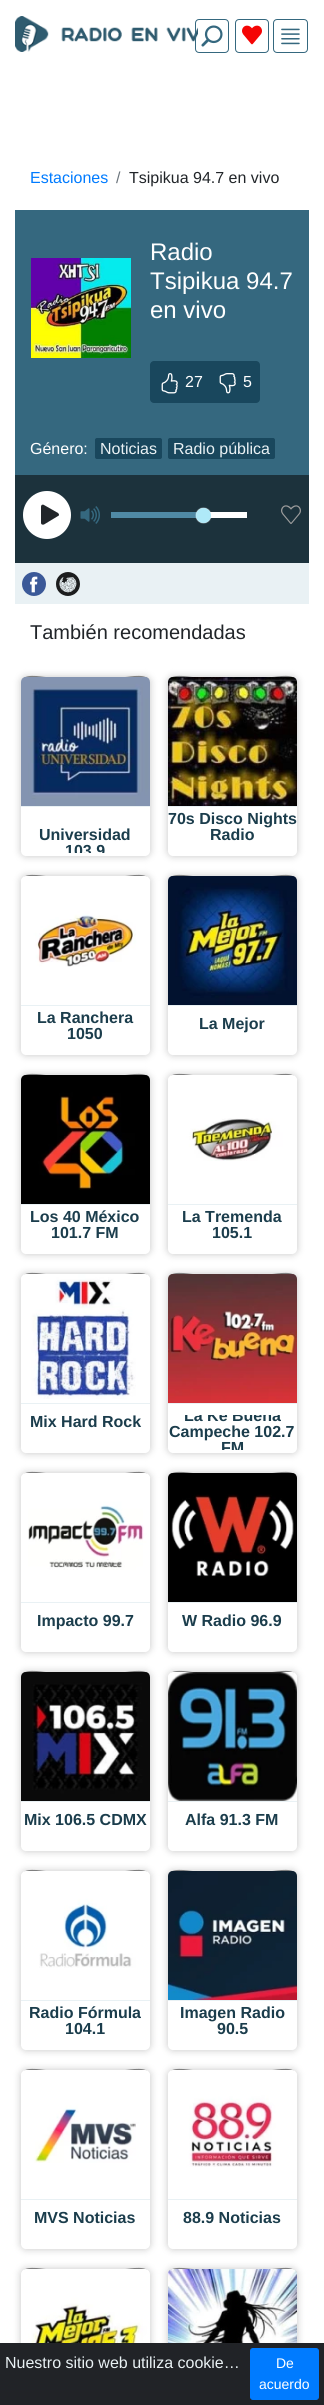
#include <cairo.h>
#include <math.h>
#include <stddef.h>

static cairo_t *ctx;

static void use_color(int r, int g, int b) {
    cairo_set_source_rgb(ctx, r / 255.0, g / 255.0, b / 255.0);
}

static void round_rect(double x, double y, double w, double h, double r) {
    cairo_new_sub_path(ctx);
    cairo_arc(ctx, x + w - r, y + h - r, r, 0, M_PI / 2);
    cairo_arc(ctx, x + r, y + h - r, r, M_PI / 2, M_PI);
    cairo_arc(ctx, x + r, y + r, r, M_PI, 1.5 * M_PI);
    cairo_arc(ctx, x + w - r, y + r, r, 1.5 * M_PI, 2 * M_PI);
    cairo_close_path(ctx);
}

static void shadow(double x, double y, double w, double h, double r, double blur, double alpha) {
    cairo_push_group_with_content(ctx, CAIRO_CONTENT_ALPHA);
    cairo_set_operator(ctx, CAIRO_OPERATOR_SOURCE);
    for (int i = 15; i >= -15 && fmin(w, h) + blur * i / 3 > 0; i -= 2) {
        double e = blur * i / 6;
        cairo_set_source_rgba(ctx, 0, 0, 0, alpha * erfc((i - 1) / 8.5) / 2);
        round_rect(x - e, y - e, w + 2 * e, h + 2 * e, fmax(0, fmin(r + e + blur * .6, fmin(w, h) / 2 + e)));
        cairo_fill(ctx);
    }
    cairo_pattern_t *soft = cairo_pop_group(ctx);
    cairo_mask(ctx, soft);
    cairo_pattern_destroy(soft);
}

static void picture(const char *path, double x, double y, double w, double h) {
    cairo_surface_t *image = cairo_image_surface_create_from_png(path);
    cairo_save(ctx);
    cairo_set_source_surface(ctx, image, x, y);
    cairo_rectangle(ctx, x, y, w, h);
    cairo_fill(ctx);
    cairo_restore(ctx);
    cairo_surface_destroy(image);
}

int main(void) {
    cairo_surface_t *surface = cairo_image_surface_create(CAIRO_FORMAT_RGB24, 324, 2405);
    ctx = cairo_create(surface);
    cairo_font_options_t *options = cairo_font_options_create();
    cairo_font_options_set_hint_metrics(options, CAIRO_HINT_METRICS_OFF);
    cairo_font_options_set_hint_style(options, CAIRO_HINT_STYLE_NONE);
    cairo_set_font_options(ctx, options);
    cairo_set_miter_limit(ctx, 4);
    use_color(255, 255, 255);
    cairo_paint(ctx);
    picture("img1.png", 15, 16, 183, 36);
    round_rect(195.5, 19.5, 33, 33, 3.5);
    use_color(53, 104, 127);
    cairo_set_line_width(ctx, 1);
    cairo_stroke(ctx);
    picture("img2.png", 201, 25, 22, 22);
    round_rect(235.5, 19.5, 33, 33, 3.5);
    cairo_stroke(ctx);
    picture("img3.png", 242, 25, 20, 20);
    round_rect(273.5, 19.5, 34, 33, 3.5);
    cairo_stroke(ctx);
    picture("img4.png", 281, 28, 19, 17);
    cairo_select_font_face(ctx, "Liberation Sans", CAIRO_FONT_SLANT_NORMAL, CAIRO_FONT_WEIGHT_NORMAL);
    cairo_set_font_size(ctx, 16);
    use_color(0, 123, 255);
    cairo_move_to(ctx, 30, 183);
    cairo_show_text(ctx, "Estaciones");
    use_color(108, 117, 125);
    cairo_move_to(ctx, 116, 183);
    cairo_show_text(ctx, "/");
    use_color(33, 37, 41);
    cairo_move_to(ctx, 129, 183);
    cairo_show_text(ctx, "Tsipikua 94.7 en vivo");
    use_color(53, 104, 127);
    cairo_rectangle(ctx, 15, 210, 294, 265);
    cairo_fill(ctx);
    picture("img5.png", 31, 258, 100, 100);
    cairo_set_font_size(ctx, 24);
    use_color(255, 255, 255);
    cairo_move_to(ctx, 150, 260);
    cairo_show_text(ctx, "Radio");
    cairo_move_to(ctx, 150, 289);
    cairo_show_text(ctx, "Tsipikua 94.7");
    cairo_move_to(ctx, 150, 318);
    cairo_show_text(ctx, "en vivo");
    use_color(25, 71, 93);
    round_rect(150, 361, 110, 42, 4);
    cairo_fill(ctx);
    picture("img6.png", 161, 373, 17, 21);
    cairo_set_font_size(ctx, 16);
    use_color(255, 255, 255);
    cairo_move_to(ctx, 185, 387);
    cairo_show_text(ctx, "27");
    picture("img7.png", 219, 373, 17, 21);
    cairo_move_to(ctx, 243, 387);
    cairo_show_text(ctx, "5");
    cairo_move_to(ctx, 30, 454);
    cairo_show_text(ctx, "Género:");
    use_color(25, 71, 93);
    round_rect(95.5, 438.5, 66, 20, 1.5);
    cairo_fill_preserve(ctx);
    cairo_stroke(ctx);
    use_color(233, 241, 244);
    cairo_move_to(ctx, 100, 454);
    cairo_show_text(ctx, "Noticias");
    use_color(25, 71, 93);
    round_rect(168.5, 438.5, 106, 20, 1.5);
    cairo_fill_preserve(ctx);
    cairo_stroke(ctx);
    use_color(233, 241, 244);
    cairo_move_to(ctx, 173, 454);
    cairo_show_text(ctx, "Radio pública");
    use_color(28, 50, 60);
    cairo_rectangle(ctx, 15, 475, 294, 88);
    cairo_fill(ctx);
    use_color(255, 255, 255);
    cairo_arc(ctx, 47, 515, 24, 0, 2 * M_PI);
    cairo_fill(ctx);
    use_color(33, 37, 41);
    cairo_new_path(ctx);
    cairo_move_to(ctx, 58, 516);
    cairo_line_to(ctx, 44, 524.5);
    cairo_curve_to(ctx, 42.5, 525, 41, 524.5, 41, 523);
    cairo_line_to(ctx, 41, 506.5);
    cairo_curve_to(ctx, 41, 505, 42.5, 504, 44, 505);
    cairo_line_to(ctx, 58, 513);
    cairo_curve_to(ctx, 58.5, 513.5, 59, 514, 59, 514.5);
    cairo_curve_to(ctx, 59, 515.5, 58.5, 516, 58, 516);
    cairo_close_path(ctx);
    cairo_fill(ctx);
    picture("img8.png", 80, 506, 20, 18);
    use_color(255, 255, 255);
    cairo_rectangle(ctx, 210, 512, 37, 6);
    cairo_fill(ctx);
    use_color(80, 138, 165);
    cairo_rectangle(ctx, 111, 512, 86, 6);
    cairo_fill(ctx);
    use_color(255, 255, 255);
    shadow(196, 508, 15, 15, 7.5, 0.5, 1);
    use_color(175, 233, 248);
    cairo_arc(ctx, 203.5, 515.5, 7.5, 0, 2 * M_PI);
    cairo_fill(ctx);
    picture("img9.png", 281, 505, 20, 19);
    use_color(233, 241, 244);
    cairo_rectangle(ctx, 15, 563, 294, 41);
    cairo_fill(ctx);
    picture("img10.png", 22, 572, 24, 24);
    picture("img11.png", 56, 572, 24, 24);
    cairo_set_font_size(ctx, 20);
    use_color(33, 37, 41);
    cairo_move_to(ctx, 30, 639);
    cairo_show_text(ctx, "También recomendadas");
    use_color(128, 128, 128);
    shadow(21, 677, 129, 179, 5, 4, 0.45);
    use_color(255, 255, 255);
    round_rect(21, 677, 129, 179, 5);
    cairo_fill(ctx);
    use_color(128, 128, 128);
    cairo_new_path(ctx);
    cairo_move_to(ctx, 26, 678);
    cairo_line_to(ctx, 145, 678);
    cairo_curve_to(ctx, 148, 678, 150, 680, 150, 683);
    cairo_curve_to(ctx, 150, 672, 129, 677, 125, 677);
    cairo_line_to(ctx, 46, 677);
    cairo_curve_to(ctx, 42, 677, 21, 672, 21, 683);
    cairo_curve_to(ctx, 21, 680, 23, 678, 26, 678);
    cairo_close_path(ctx);
    cairo_fill(ctx);
    picture("img12.png", 21, 677, 129, 129);
    use_color(233, 241, 244);
    cairo_rectangle(ctx, 21, 806, 129, 1);
    cairo_fill(ctx);
    cairo_select_font_face(ctx, "Liberation Sans", CAIRO_FONT_SLANT_NORMAL, CAIRO_FONT_WEIGHT_BOLD);
    cairo_set_font_size(ctx, 16);
    use_color(27, 61, 76);
    cairo_move_to(ctx, 39, 840);
    cairo_show_text(ctx, "Universidad");
    cairo_save(ctx);
    cairo_new_path(ctx);
    cairo_move_to(ctx, 21, 818);
    cairo_line_to(ctx, 150, 818);
    cairo_line_to(ctx, 150, 848);
    cairo_curve_to(ctx, 150, 851, 148, 853, 145, 853);
    cairo_line_to(ctx, 26, 853);
    cairo_curve_to(ctx, 23, 853, 21, 851, 21, 848);
    cairo_close_path(ctx);
    cairo_clip(ctx);
    cairo_move_to(ctx, 65, 856);
    cairo_show_text(ctx, "103.9");
    cairo_restore(ctx);
    use_color(128, 128, 128);
    shadow(168, 677, 129, 179, 5, 4, 0.45);
    use_color(255, 255, 255);
    round_rect(168, 677, 129, 179, 5);
    cairo_fill(ctx);
    use_color(128, 128, 128);
    cairo_new_path(ctx);
    cairo_move_to(ctx, 173, 678);
    cairo_line_to(ctx, 292, 678);
    cairo_curve_to(ctx, 295, 678, 297, 680, 297, 683);
    cairo_curve_to(ctx, 297, 672, 276, 677, 272, 677);
    cairo_line_to(ctx, 193, 677);
    cairo_curve_to(ctx, 189, 677, 168, 672, 168, 683);
    cairo_curve_to(ctx, 168, 680, 170, 678, 173, 678);
    cairo_close_path(ctx);
    cairo_fill(ctx);
    picture("img13.png", 168, 677, 129, 129);
    use_color(233, 241, 244);
    cairo_rectangle(ctx, 168, 806, 129, 1);
    cairo_fill(ctx);
    use_color(27, 61, 76);
    cairo_move_to(ctx, 168, 824);
    cairo_show_text(ctx, "70s Disco Nights");
    cairo_move_to(ctx, 210, 840);
    cairo_show_text(ctx, "Radio");
    use_color(128, 128, 128);
    shadow(21, 876, 129, 179, 5, 4, 0.45);
    use_color(255, 255, 255);
    round_rect(21, 876, 129, 179, 5);
    cairo_fill(ctx);
    use_color(128, 128, 128);
    cairo_new_path(ctx);
    cairo_move_to(ctx, 26, 877);
    cairo_line_to(ctx, 145, 877);
    cairo_curve_to(ctx, 148, 877, 150, 879, 150, 882);
    cairo_curve_to(ctx, 150, 871, 129, 876, 125, 876);
    cairo_line_to(ctx, 46, 876);
    cairo_curve_to(ctx, 42, 876, 21, 871, 21, 882);
    cairo_curve_to(ctx, 21, 879, 23, 877, 26, 877);
    cairo_close_path(ctx);
    cairo_fill(ctx);
    picture("img14.png", 21, 876, 129, 91);
    use_color(233, 241, 244);
    cairo_rectangle(ctx, 21, 1005, 129, 1);
    cairo_fill(ctx);
    use_color(27, 61, 76);
    cairo_move_to(ctx, 37, 1023);
    cairo_show_text(ctx, "La Ranchera");
    cairo_move_to(ctx, 67, 1039);
    cairo_show_text(ctx, "1050");
    use_color(128, 128, 128);
    shadow(168, 876, 129, 179, 5, 4, 0.45);
    use_color(255, 255, 255);
    round_rect(168, 876, 129, 179, 5);
    cairo_fill(ctx);
    use_color(128, 128, 128);
    cairo_new_path(ctx);
    cairo_move_to(ctx, 173, 877);
    cairo_line_to(ctx, 292, 877);
    cairo_curve_to(ctx, 295, 877, 297, 879, 297, 882);
    cairo_curve_to(ctx, 297, 871, 276, 876, 272, 876);
    cairo_line_to(ctx, 193, 876);
    cairo_curve_to(ctx, 189, 876, 168, 871, 168, 882);
    cairo_curve_to(ctx, 168, 879, 170, 877, 173, 877);
    cairo_close_path(ctx);
    cairo_fill(ctx);
    picture("img15.png", 168, 876, 129, 129);
    use_color(233, 241, 244);
    cairo_rectangle(ctx, 168, 1005, 129, 1);
    cairo_fill(ctx);
    use_color(27, 61, 76);
    cairo_move_to(ctx, 199, 1029);
    cairo_show_text(ctx, "La Mejor");
    use_color(128, 128, 128);
    shadow(21, 1075, 129, 179, 5, 4, 0.45);
    use_color(255, 255, 255);
    round_rect(21, 1075, 129, 179, 5);
    cairo_fill(ctx);
    use_color(128, 128, 128);
    cairo_new_path(ctx);
    cairo_move_to(ctx, 26, 1076);
    cairo_line_to(ctx, 145, 1076);
    cairo_curve_to(ctx, 148, 1076, 150, 1078, 150, 1081);
    cairo_curve_to(ctx, 150, 1070, 129, 1075, 125, 1075);
    cairo_line_to(ctx, 46, 1075);
    cairo_curve_to(ctx, 42, 1075, 21, 1070, 21, 1081);
    cairo_curve_to(ctx, 21, 1078, 23, 1076, 26, 1076);
    cairo_close_path(ctx);
    cairo_fill(ctx);
    picture("img16.png", 21, 1075, 129, 129);
    use_color(233, 241, 244);
    cairo_rectangle(ctx, 21, 1204, 129, 1);
    cairo_fill(ctx);
    use_color(27, 61, 76);
    cairo_move_to(ctx, 30, 1222);
    cairo_show_text(ctx, "Los 40 México");
    cairo_move_to(ctx, 51, 1238);
    cairo_show_text(ctx, "101.7 FM");
    use_color(128, 128, 128);
    shadow(168, 1075, 129, 179, 5, 4, 0.45);
    use_color(255, 255, 255);
    round_rect(168, 1075, 129, 179, 5);
    cairo_fill(ctx);
    use_color(128, 128, 128);
    cairo_new_path(ctx);
    cairo_move_to(ctx, 173, 1076);
    cairo_line_to(ctx, 292, 1076);
    cairo_curve_to(ctx, 295, 1076, 297, 1078, 297, 1081);
    cairo_curve_to(ctx, 297, 1070, 276, 1075, 272, 1075);
    cairo_line_to(ctx, 193, 1075);
    cairo_curve_to(ctx, 189, 1075, 168, 1070, 168, 1081);
    cairo_curve_to(ctx, 168, 1078, 170, 1076, 173, 1076);
    cairo_close_path(ctx);
    cairo_fill(ctx);
    picture("img17.png", 168, 1075, 129, 86);
    use_color(233, 241, 244);
    cairo_rectangle(ctx, 168, 1204, 129, 1);
    cairo_fill(ctx);
    use_color(27, 61, 76);
    cairo_move_to(ctx, 182, 1222);
    cairo_show_text(ctx, "La Tremenda");
    cairo_move_to(ctx, 212, 1238);
    cairo_show_text(ctx, "105.1");
    use_color(128, 128, 128);
    shadow(21, 1274, 129, 179, 5, 4, 0.45);
    use_color(255, 255, 255);
    round_rect(21, 1274, 129, 179, 5);
    cairo_fill(ctx);
    use_color(128, 128, 128);
    cairo_new_path(ctx);
    cairo_move_to(ctx, 26, 1275);
    cairo_line_to(ctx, 145, 1275);
    cairo_curve_to(ctx, 148, 1275, 150, 1277, 150, 1280);
    cairo_curve_to(ctx, 150, 1269, 129, 1274, 125, 1274);
    cairo_line_to(ctx, 46, 1274);
    cairo_curve_to(ctx, 42, 1274, 21, 1269, 21, 1280);
    cairo_curve_to(ctx, 21, 1277, 23, 1275, 26, 1275);
    cairo_close_path(ctx);
    cairo_fill(ctx);
    picture("img18.png", 21, 1274, 129, 125);
    use_color(233, 241, 244);
    cairo_rectangle(ctx, 21, 1403, 129, 1);
    cairo_fill(ctx);
    use_color(27, 61, 76);
    cairo_move_to(ctx, 30, 1427);
    cairo_show_text(ctx, "Mix Hard Rock");
    use_color(128, 128, 128);
    shadow(168, 1274, 129, 179, 5, 4, 0.45);
    use_color(255, 255, 255);
    round_rect(168, 1274, 129, 179, 5);
    cairo_fill(ctx);
    use_color(128, 128, 128);
    cairo_new_path(ctx);
    cairo_move_to(ctx, 173, 1275);
    cairo_line_to(ctx, 292, 1275);
    cairo_curve_to(ctx, 295, 1275, 297, 1277, 297, 1280);
    cairo_curve_to(ctx, 297, 1269, 276, 1274, 272, 1274);
    cairo_line_to(ctx, 193, 1274);
    cairo_curve_to(ctx, 189, 1274, 168, 1269, 168, 1280);
    cairo_curve_to(ctx, 168, 1277, 170, 1275, 173, 1275);
    cairo_close_path(ctx);
    cairo_fill(ctx);
    picture("img19.png", 168, 1274, 129, 129);
    use_color(233, 241, 244);
    cairo_rectangle(ctx, 168, 1403, 129, 1);
    cairo_fill(ctx);
    cairo_save(ctx);
    cairo_new_path(ctx);
    cairo_move_to(ctx, 168, 1415);
    cairo_line_to(ctx, 297, 1415);
    cairo_line_to(ctx, 297, 1445);
    cairo_curve_to(ctx, 297, 1448, 295, 1450, 292, 1450);
    cairo_line_to(ctx, 173, 1450);
    cairo_curve_to(ctx, 170, 1450, 168, 1448, 168, 1445);
    cairo_close_path(ctx);
    cairo_clip(ctx);
    use_color(27, 61, 76);
    cairo_move_to(ctx, 184, 1421);
    cairo_show_text(ctx, "La Ke Buena");
    cairo_restore(ctx);
    use_color(27, 61, 76);
    cairo_move_to(ctx, 169, 1437);
    cairo_show_text(ctx, "Campeche 102.7");
    cairo_save(ctx);
    cairo_new_path(ctx);
    cairo_move_to(ctx, 168, 1415);
    cairo_line_to(ctx, 297, 1415);
    cairo_line_to(ctx, 297, 1445);
    cairo_curve_to(ctx, 297, 1448, 295, 1450, 292, 1450);
    cairo_line_to(ctx, 173, 1450);
    cairo_curve_to(ctx, 170, 1450, 168, 1448, 168, 1445);
    cairo_close_path(ctx);
    cairo_clip(ctx);
    cairo_move_to(ctx, 221, 1453);
    cairo_show_text(ctx, "FM");
    cairo_restore(ctx);
    use_color(128, 128, 128);
    shadow(21, 1473, 129, 179, 5, 4, 0.45);
    use_color(255, 255, 255);
    round_rect(21, 1473, 129, 179, 5);
    cairo_fill(ctx);
    use_color(128, 128, 128);
    cairo_new_path(ctx);
    cairo_move_to(ctx, 26, 1474);
    cairo_line_to(ctx, 145, 1474);
    cairo_curve_to(ctx, 148, 1474, 150, 1476, 150, 1479);
    cairo_curve_to(ctx, 150, 1468, 129, 1473, 125, 1473);
    cairo_line_to(ctx, 46, 1473);
    cairo_curve_to(ctx, 42, 1473, 21, 1468, 21, 1479);
    cairo_curve_to(ctx, 21, 1476, 23, 1474, 26, 1474);
    cairo_close_path(ctx);
    cairo_fill(ctx);
    picture("img20.png", 21, 1473, 129, 97);
    use_color(233, 241, 244);
    cairo_rectangle(ctx, 21, 1602, 129, 1);
    cairo_fill(ctx);
    use_color(27, 61, 76);
    cairo_move_to(ctx, 37, 1626);
    cairo_show_text(ctx, "Impacto 99.7");
    use_color(128, 128, 128);
    shadow(168, 1473, 129, 179, 5, 4, 0.45);
    use_color(255, 255, 255);
    round_rect(168, 1473, 129, 179, 5);
    cairo_fill(ctx);
    use_color(128, 128, 128);
    cairo_new_path(ctx);
    cairo_move_to(ctx, 173, 1474);
    cairo_line_to(ctx, 292, 1474);
    cairo_curve_to(ctx, 295, 1474, 297, 1476, 297, 1479);
    cairo_curve_to(ctx, 297, 1468, 276, 1473, 272, 1473);
    cairo_line_to(ctx, 193, 1473);
    cairo_curve_to(ctx, 189, 1473, 168, 1468, 168, 1479);
    cairo_curve_to(ctx, 168, 1476, 170, 1474, 173, 1474);
    cairo_close_path(ctx);
    cairo_fill(ctx);
    picture("img21.png", 168, 1473, 129, 129);
    use_color(233, 241, 244);
    cairo_rectangle(ctx, 168, 1602, 129, 1);
    cairo_fill(ctx);
    use_color(27, 61, 76);
    cairo_move_to(ctx, 182, 1626);
    cairo_show_text(ctx, "W Radio 96.9");
    use_color(128, 128, 128);
    shadow(21, 1672, 129, 179, 5, 4, 0.45);
    use_color(255, 255, 255);
    round_rect(21, 1672, 129, 179, 5);
    cairo_fill(ctx);
    use_color(128, 128, 128);
    cairo_new_path(ctx);
    cairo_move_to(ctx, 26, 1673);
    cairo_line_to(ctx, 145, 1673);
    cairo_curve_to(ctx, 148, 1673, 150, 1675, 150, 1678);
    cairo_curve_to(ctx, 150, 1667, 129, 1672, 125, 1672);
    cairo_line_to(ctx, 46, 1672);
    cairo_curve_to(ctx, 42, 1672, 21, 1667, 21, 1678);
    cairo_curve_to(ctx, 21, 1675, 23, 1673, 26, 1673);
    cairo_close_path(ctx);
    cairo_fill(ctx);
    picture("img22.png", 21, 1672, 129, 129);
    use_color(233, 241, 244);
    cairo_rectangle(ctx, 21, 1801, 129, 1);
    cairo_fill(ctx);
    use_color(27, 61, 76);
    cairo_move_to(ctx, 24, 1825);
    cairo_show_text(ctx, "Mix 106.5 CDMX");
    use_color(128, 128, 128);
    shadow(168, 1672, 129, 179, 5, 4, 0.45);
    use_color(255, 255, 255);
    round_rect(168, 1672, 129, 179, 5);
    cairo_fill(ctx);
    use_color(128, 128, 128);
    cairo_new_path(ctx);
    cairo_move_to(ctx, 173, 1673);
    cairo_line_to(ctx, 292, 1673);
    cairo_curve_to(ctx, 295, 1673, 297, 1675, 297, 1678);
    cairo_curve_to(ctx, 297, 1667, 276, 1672, 272, 1672);
    cairo_line_to(ctx, 193, 1672);
    cairo_curve_to(ctx, 189, 1672, 168, 1667, 168, 1678);
    cairo_curve_to(ctx, 168, 1675, 170, 1673, 173, 1673);
    cairo_close_path(ctx);
    cairo_fill(ctx);
    picture("img23.png", 168, 1672, 129, 129);
    use_color(233, 241, 244);
    cairo_rectangle(ctx, 168, 1801, 129, 1);
    cairo_fill(ctx);
    use_color(27, 61, 76);
    cairo_move_to(ctx, 185, 1825);
    cairo_show_text(ctx, "Alfa 91.3 FM");
    use_color(128, 128, 128);
    shadow(21, 1871, 129, 179, 5, 4, 0.45);
    use_color(255, 255, 255);
    round_rect(21, 1871, 129, 179, 5);
    cairo_fill(ctx);
    use_color(128, 128, 128);
    cairo_new_path(ctx);
    cairo_move_to(ctx, 26, 1872);
    cairo_line_to(ctx, 145, 1872);
    cairo_curve_to(ctx, 148, 1872, 150, 1874, 150, 1877);
    cairo_curve_to(ctx, 150, 1866, 129, 1871, 125, 1871);
    cairo_line_to(ctx, 46, 1871);
    cairo_curve_to(ctx, 42, 1871, 21, 1866, 21, 1877);
    cairo_curve_to(ctx, 21, 1874, 23, 1872, 26, 1872);
    cairo_close_path(ctx);
    cairo_fill(ctx);
    picture("img24.png", 21, 1871, 129, 97);
    use_color(233, 241, 244);
    cairo_rectangle(ctx, 21, 2000, 129, 1);
    cairo_fill(ctx);
    use_color(27, 61, 76);
    cairo_move_to(ctx, 29, 2018);
    cairo_show_text(ctx, "Radio Fórmula");
    cairo_move_to(ctx, 65, 2034);
    cairo_show_text(ctx, "104.1");
    use_color(128, 128, 128);
    shadow(168, 1871, 129, 179, 5, 4, 0.45);
    use_color(255, 255, 255);
    round_rect(168, 1871, 129, 179, 5);
    cairo_fill(ctx);
    use_color(128, 128, 128);
    cairo_new_path(ctx);
    cairo_move_to(ctx, 173, 1872);
    cairo_line_to(ctx, 292, 1872);
    cairo_curve_to(ctx, 295, 1872, 297, 1874, 297, 1877);
    cairo_curve_to(ctx, 297, 1866, 276, 1871, 272, 1871);
    cairo_line_to(ctx, 193, 1871);
    cairo_curve_to(ctx, 189, 1871, 168, 1866, 168, 1877);
    cairo_curve_to(ctx, 168, 1874, 170, 1872, 173, 1872);
    cairo_close_path(ctx);
    cairo_fill(ctx);
    picture("img25.png", 168, 1871, 129, 129);
    use_color(233, 241, 244);
    cairo_rectangle(ctx, 168, 2000, 129, 1);
    cairo_fill(ctx);
    use_color(27, 61, 76);
    cairo_move_to(ctx, 180, 2018);
    cairo_show_text(ctx, "Imagen Radio");
    cairo_move_to(ctx, 217, 2034);
    cairo_show_text(ctx, "90.5");
    use_color(128, 128, 128);
    shadow(21, 2070, 129, 179, 5, 4, 0.45);
    use_color(255, 255, 255);
    round_rect(21, 2070, 129, 179, 5);
    cairo_fill(ctx);
    use_color(128, 128, 128);
    cairo_new_path(ctx);
    cairo_move_to(ctx, 26, 2071);
    cairo_line_to(ctx, 145, 2071);
    cairo_curve_to(ctx, 148, 2071, 150, 2073, 150, 2076);
    cairo_curve_to(ctx, 150, 2065, 129, 2070, 125, 2070);
    cairo_line_to(ctx, 46, 2070);
    cairo_curve_to(ctx, 42, 2070, 21, 2065, 21, 2076);
    cairo_curve_to(ctx, 21, 2073, 23, 2071, 26, 2071);
    cairo_close_path(ctx);
    cairo_fill(ctx);
    picture("img26.png", 21, 2070, 129, 93);
    use_color(233, 241, 244);
    cairo_rectangle(ctx, 21, 2199, 129, 1);
    cairo_fill(ctx);
    use_color(27, 61, 76);
    cairo_move_to(ctx, 34, 2223);
    cairo_show_text(ctx, "MVS Noticias");
    use_color(128, 128, 128);
    shadow(168, 2070, 129, 179, 5, 4, 0.45);
    use_color(255, 255, 255);
    round_rect(168, 2070, 129, 179, 5);
    cairo_fill(ctx);
    use_color(128, 128, 128);
    cairo_new_path(ctx);
    cairo_move_to(ctx, 173, 2071);
    cairo_line_to(ctx, 292, 2071);
    cairo_curve_to(ctx, 295, 2071, 297, 2073, 297, 2076);
    cairo_curve_to(ctx, 297, 2065, 276, 2070, 272, 2070);
    cairo_line_to(ctx, 193, 2070);
    cairo_curve_to(ctx, 189, 2070, 168, 2065, 168, 2076);
    cairo_curve_to(ctx, 168, 2073, 170, 2071, 173, 2071);
    cairo_close_path(ctx);
    cairo_fill(ctx);
    picture("img27.png", 168, 2070, 129, 97);
    use_color(233, 241, 244);
    cairo_rectangle(ctx, 168, 2199, 129, 1);
    cairo_fill(ctx);
    use_color(27, 61, 76);
    cairo_move_to(ctx, 183, 2223);
    cairo_show_text(ctx, "88.9 Noticias");
    use_color(128, 128, 128);
    shadow(21, 2269, 129, 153, 5, 4, 0.45);
    use_color(128, 128, 128);
    cairo_new_path(ctx);
    cairo_move_to(ctx, 26, 2270);
    cairo_line_to(ctx, 145, 2270);
    cairo_curve_to(ctx, 148, 2270, 150, 2272, 150, 2275);
    cairo_curve_to(ctx, 150, 2264, 129, 2269, 125, 2269);
    cairo_line_to(ctx, 46, 2269);
    cairo_curve_to(ctx, 42, 2269, 21, 2264, 21, 2275);
    cairo_curve_to(ctx, 21, 2272, 23, 2270, 26, 2270);
    cairo_close_path(ctx);
    cairo_fill(ctx);
    picture("img28.png", 21, 2269, 129, 74);
    use_color(128, 128, 128);
    shadow(168, 2269, 129, 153, 5, 4, 0.45);
    use_color(128, 128, 128);
    cairo_new_path(ctx);
    cairo_move_to(ctx, 173, 2270);
    cairo_line_to(ctx, 292, 2270);
    cairo_curve_to(ctx, 295, 2270, 297, 2272, 297, 2275);
    cairo_curve_to(ctx, 297, 2264, 276, 2269, 272, 2269);
    cairo_line_to(ctx, 193, 2269);
    cairo_curve_to(ctx, 189, 2269, 168, 2264, 168, 2275);
    cairo_curve_to(ctx, 168, 2272, 170, 2270, 173, 2270);
    cairo_close_path(ctx);
    cairo_fill(ctx);
    picture("img29.png", 168, 2269, 129, 74);
    use_color(33, 35, 39);
    cairo_rectangle(ctx, 0, 2343, 324, 62);
    cairo_fill(ctx);
    cairo_select_font_face(ctx, "Liberation Sans", CAIRO_FONT_SLANT_NORMAL, CAIRO_FONT_WEIGHT_NORMAL);
    use_color(233, 241, 244);
    cairo_move_to(ctx, 5, 2368);
    cairo_show_text(ctx, "Nuestro sitio web utiliza cookie…");
    use_color(0, 123, 255);
    round_rect(250.5, 2348.5, 68, 51, 2.5);
    cairo_fill_preserve(ctx);
    cairo_stroke(ctx);
    cairo_set_font_size(ctx, 14);
    use_color(255, 255, 255);
    cairo_move_to(ctx, 276, 2368);
    cairo_show_text(ctx, "De");
    cairo_move_to(ctx, 259, 2389);
    cairo_show_text(ctx, "acuerdo");
    cairo_surface_write_to_png(surface, "result.png");
    cairo_font_options_destroy(options);
    cairo_destroy(ctx);
    cairo_surface_destroy(surface);
    return 0;
}
